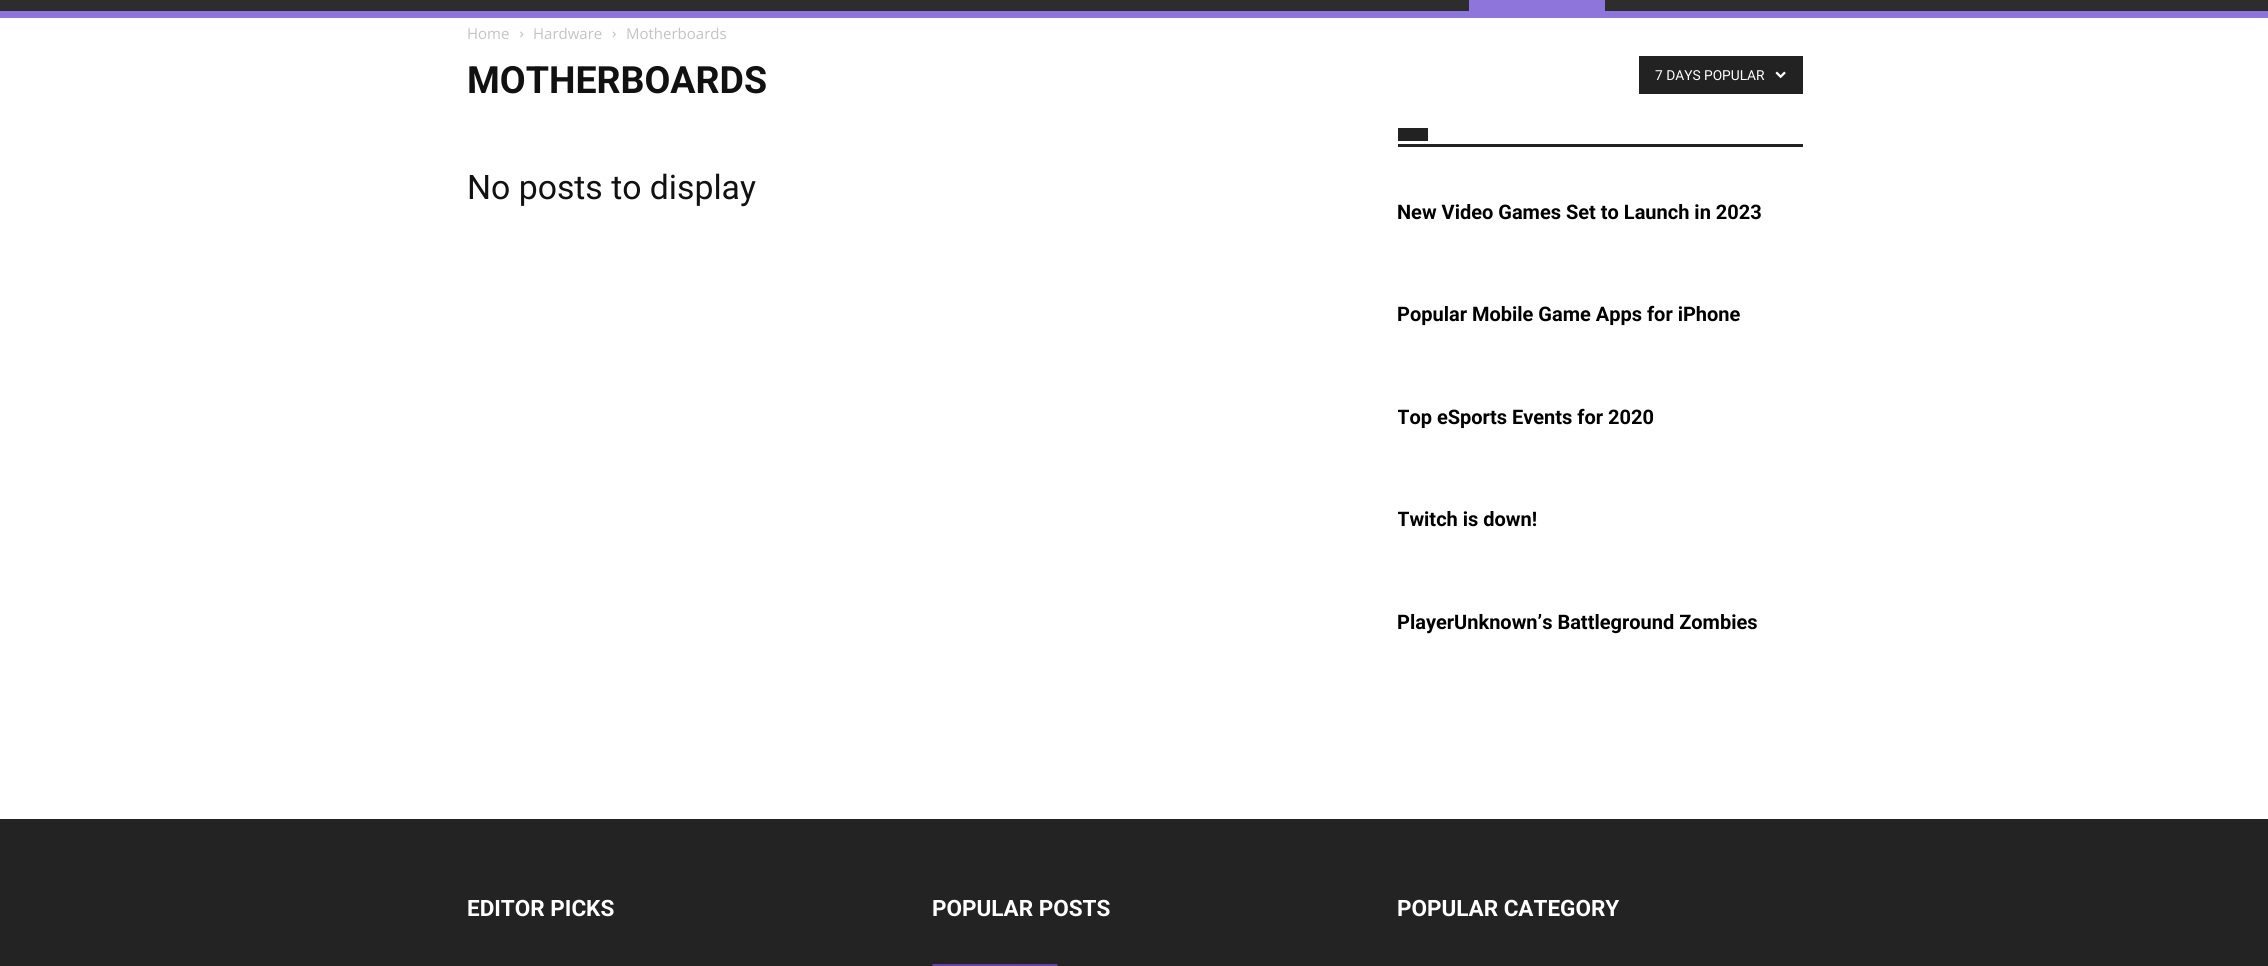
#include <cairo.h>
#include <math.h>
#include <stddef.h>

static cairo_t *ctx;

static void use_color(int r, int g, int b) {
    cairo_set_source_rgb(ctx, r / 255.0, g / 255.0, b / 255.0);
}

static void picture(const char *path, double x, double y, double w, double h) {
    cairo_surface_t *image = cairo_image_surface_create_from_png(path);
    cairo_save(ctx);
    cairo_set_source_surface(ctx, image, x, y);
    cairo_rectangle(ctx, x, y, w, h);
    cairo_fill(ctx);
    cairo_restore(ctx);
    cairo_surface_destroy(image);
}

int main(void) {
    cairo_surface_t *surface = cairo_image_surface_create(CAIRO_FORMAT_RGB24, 2268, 966);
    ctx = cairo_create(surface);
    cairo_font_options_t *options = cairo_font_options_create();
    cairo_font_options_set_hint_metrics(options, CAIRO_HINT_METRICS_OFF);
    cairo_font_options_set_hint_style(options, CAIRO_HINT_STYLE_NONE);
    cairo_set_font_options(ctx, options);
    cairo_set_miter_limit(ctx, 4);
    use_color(255, 255, 255);
    cairo_paint(ctx);
    use_color(45, 45, 45);
    cairo_rectangle(ctx, 0, 0, 2268, 11);
    cairo_fill(ctx);
    use_color(141, 117, 220);
    cairo_rectangle(ctx, 0, 11, 2268, 7);
    cairo_fill(ctx);
    cairo_rectangle(ctx, 1469, 0, 136, 11);
    cairo_fill(ctx);
    cairo_select_font_face(ctx, "Open Sans", CAIRO_FONT_SLANT_NORMAL, CAIRO_FONT_WEIGHT_NORMAL);
    cairo_set_font_size(ctx, 15);
    use_color(195, 195, 195);
    cairo_move_to(ctx, 467, 39);
    cairo_show_text(ctx, "Home");
    picture("img1.png", 520, 31, 4, 7);
    cairo_move_to(ctx, 533, 39);
    cairo_show_text(ctx, "Hardware");
    picture("img2.png", 612, 31, 4, 7);
    cairo_move_to(ctx, 626, 39);
    cairo_show_text(ctx, "Motherboards");
    cairo_select_font_face(ctx, "Roboto", CAIRO_FONT_SLANT_NORMAL, CAIRO_FONT_WEIGHT_BOLD);
    cairo_set_font_size(ctx, 37.5);
    use_color(17, 17, 17);
    cairo_move_to(ctx, 467, 93);
    cairo_show_text(ctx, "MOTHERBOARDS");
    use_color(34, 34, 34);
    cairo_rectangle(ctx, 1639, 56, 164, 38);
    cairo_fill(ctx);
    cairo_select_font_face(ctx, "Roboto", CAIRO_FONT_SLANT_NORMAL, CAIRO_FONT_WEIGHT_NORMAL);
    cairo_set_font_size(ctx, 13.75);
    use_color(255, 255, 255);
    cairo_move_to(ctx, 1655, 80);
    cairo_show_text(ctx, "7 DAYS POPULAR");
    picture("img3.png", 1775, 71, 11, 8);
    cairo_set_font_size(ctx, 33.75);
    use_color(17, 17, 17);
    cairo_move_to(ctx, 467, 199);
    cairo_show_text(ctx, "No posts to display");
    use_color(34, 34, 34);
    cairo_rectangle(ctx, 1398, 144, 405, 3);
    cairo_fill(ctx);
    cairo_rectangle(ctx, 1398, 128, 30, 13);
    cairo_fill(ctx);
    cairo_select_font_face(ctx, "Roboto", CAIRO_FONT_SLANT_NORMAL, CAIRO_FONT_WEIGHT_BOLD);
    cairo_set_font_size(ctx, 20);
    use_color(0, 0, 0);
    cairo_move_to(ctx, 1397, 219);
    cairo_show_text(ctx, "New Video Games Set to Launch in 2023");
    cairo_move_to(ctx, 1397, 321);
    cairo_show_text(ctx, "Popular Mobile Game Apps for iPhone");
    cairo_save(ctx);
    cairo_rectangle(ctx, 1398, 126, 405, 595);
    cairo_clip(ctx);
    cairo_move_to(ctx, 1397, 424);
    cairo_show_text(ctx, "Top eSports Events for 2020");
    cairo_move_to(ctx, 1397, 526);
    cairo_show_text(ctx, "Twitch is down!");
    cairo_restore(ctx);
    cairo_move_to(ctx, 1397, 629);
    cairo_show_text(ctx, "PlayerUnknown’s Battleground Zombies");
    use_color(35, 35, 35);
    cairo_rectangle(ctx, 0, 819, 2268, 147);
    cairo_fill(ctx);
    cairo_set_font_size(ctx, 22.5);
    use_color(255, 255, 255);
    cairo_move_to(ctx, 467, 916);
    cairo_show_text(ctx, "EDITOR PICKS");
    cairo_move_to(ctx, 932, 916);
    cairo_show_text(ctx, "POPULAR POSTS");
    picture("img4.png", 932, 964, 126, 2);
    cairo_move_to(ctx, 1397, 916);
    cairo_show_text(ctx, "POPULAR CATEGORY");
    cairo_surface_write_to_png(surface, "result.png");
    cairo_font_options_destroy(options);
    cairo_destroy(ctx);
    cairo_surface_destroy(surface);
    return 0;
}
